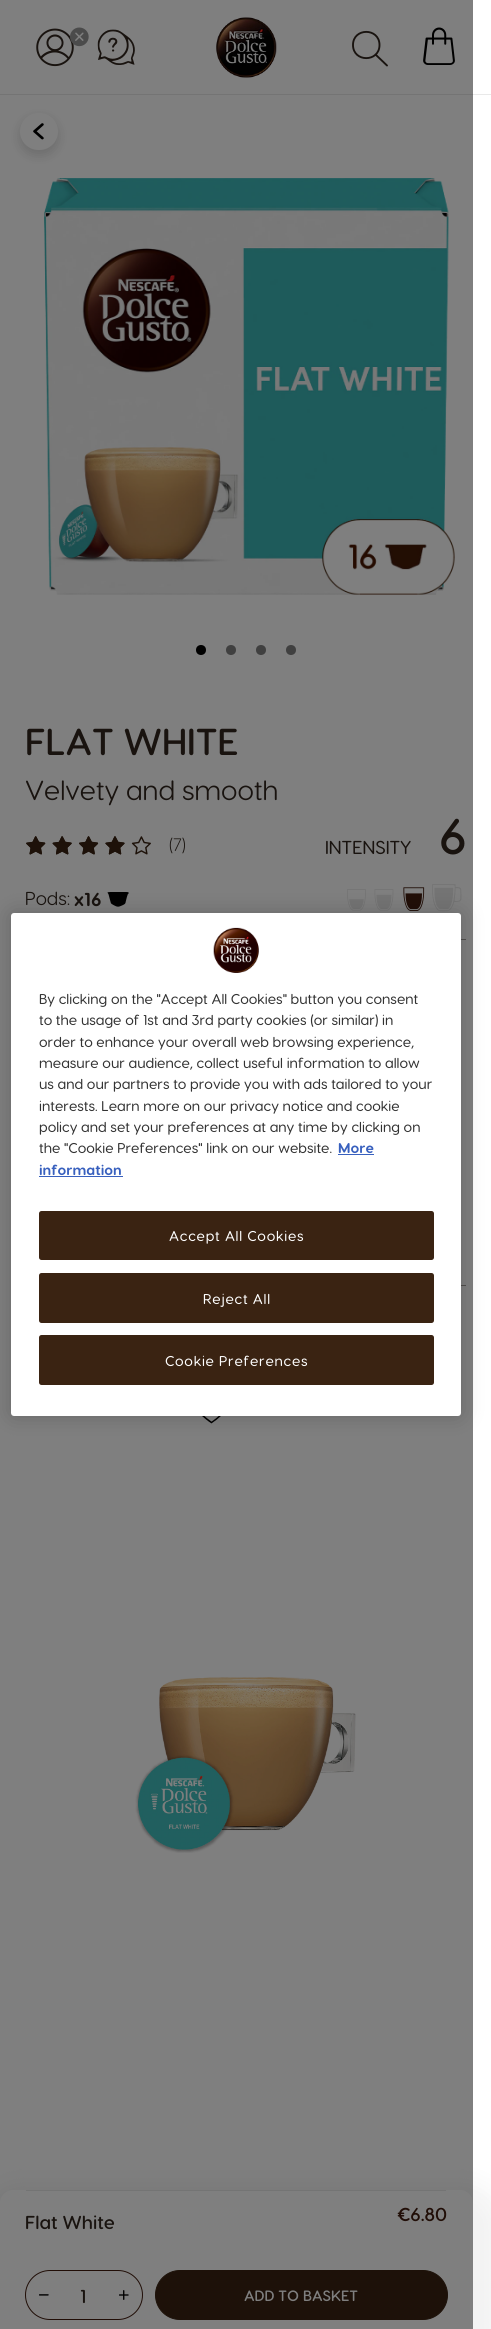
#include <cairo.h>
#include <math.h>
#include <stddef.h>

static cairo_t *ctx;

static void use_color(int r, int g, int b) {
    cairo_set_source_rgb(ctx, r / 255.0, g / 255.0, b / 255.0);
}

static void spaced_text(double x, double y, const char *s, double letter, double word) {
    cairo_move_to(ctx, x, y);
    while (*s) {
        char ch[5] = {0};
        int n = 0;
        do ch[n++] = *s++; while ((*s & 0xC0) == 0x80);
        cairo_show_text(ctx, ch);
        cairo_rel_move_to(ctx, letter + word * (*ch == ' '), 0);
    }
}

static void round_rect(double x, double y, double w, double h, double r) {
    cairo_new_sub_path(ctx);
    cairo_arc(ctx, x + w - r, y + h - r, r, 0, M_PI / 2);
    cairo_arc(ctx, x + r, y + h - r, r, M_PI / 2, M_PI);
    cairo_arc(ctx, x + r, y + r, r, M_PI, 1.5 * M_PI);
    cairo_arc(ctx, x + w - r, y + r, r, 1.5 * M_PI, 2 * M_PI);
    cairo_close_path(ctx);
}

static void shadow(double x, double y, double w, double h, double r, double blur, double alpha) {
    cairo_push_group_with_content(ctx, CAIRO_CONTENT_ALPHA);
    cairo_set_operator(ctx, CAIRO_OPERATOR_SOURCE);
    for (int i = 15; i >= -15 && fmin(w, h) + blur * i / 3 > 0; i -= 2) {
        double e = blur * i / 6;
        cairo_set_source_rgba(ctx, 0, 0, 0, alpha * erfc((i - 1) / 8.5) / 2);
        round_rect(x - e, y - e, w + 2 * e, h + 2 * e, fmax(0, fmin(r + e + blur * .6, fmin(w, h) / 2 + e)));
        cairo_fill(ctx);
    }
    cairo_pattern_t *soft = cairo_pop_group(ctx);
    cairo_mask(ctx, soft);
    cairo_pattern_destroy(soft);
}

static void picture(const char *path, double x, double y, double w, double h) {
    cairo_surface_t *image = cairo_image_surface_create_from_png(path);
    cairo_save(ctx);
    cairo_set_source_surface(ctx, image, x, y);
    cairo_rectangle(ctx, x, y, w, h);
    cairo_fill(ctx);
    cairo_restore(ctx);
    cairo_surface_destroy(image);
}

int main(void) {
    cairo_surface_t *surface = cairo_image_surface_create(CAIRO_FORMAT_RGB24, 491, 2329);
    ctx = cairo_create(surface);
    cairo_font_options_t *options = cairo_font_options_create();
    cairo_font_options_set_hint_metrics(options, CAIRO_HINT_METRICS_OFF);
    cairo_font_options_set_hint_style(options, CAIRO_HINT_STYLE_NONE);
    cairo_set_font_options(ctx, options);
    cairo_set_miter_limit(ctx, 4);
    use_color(255, 255, 255);
    cairo_paint(ctx);
    use_color(233, 233, 233);
    cairo_rectangle(ctx, 0, 94, 491, 1);
    cairo_fill(ctx);
    picture("img1.png", 216, 17, 61, 61);
    picture("img2.png", 36, 28, 38, 39);
    picture("img3.png", 70, 27, 19, 20);
    picture("img4.png", 97, 29, 38, 36);
    cairo_new_path(ctx);
    cairo_move_to(ctx, 387, 65.5);
    cairo_line_to(ctx, 375.5, 54.5);
    cairo_move_to(ctx, 379.5, 45);
    cairo_curve_to(ctx, 379.5, 62.5, 353, 62.5, 353, 45);
    cairo_curve_to(ctx, 353, 27.5, 379.5, 27.5, 379.5, 45);
    cairo_close_path(ctx);
    use_color(50, 39, 31);
    cairo_set_line_width(ctx, 1.9);
    cairo_set_line_cap(ctx, CAIRO_LINE_CAP_ROUND);
    cairo_set_line_join(ctx, CAIRO_LINE_JOIN_ROUND);
    cairo_stroke(ctx);
    picture("img5.png", 423, 27, 32, 38);
    use_color(0, 0, 0);
    shadow(20, 118, 38, 37, 18.5, 6, 0.15);
    use_color(255, 255, 255);
    round_rect(20, 113, 38, 37, 18.5);
    cairo_fill(ctx);
    picture("img6.png", 33, 123, 11, 17);
    picture("img7.png", 44, 178, 411, 417);
    use_color(0, 0, 0);
    cairo_arc(ctx, 201, 650, 5, 0, 2 * M_PI);
    cairo_fill(ctx);
    use_color(128, 128, 128);
    cairo_arc(ctx, 231, 650, 5, 0, 2 * M_PI);
    cairo_fill(ctx);
    cairo_arc(ctx, 261, 650, 5, 0, 2 * M_PI);
    cairo_fill(ctx);
    cairo_arc(ctx, 291, 650, 5, 0, 2 * M_PI);
    cairo_fill(ctx);
    cairo_select_font_face(ctx, "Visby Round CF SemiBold", CAIRO_FONT_SLANT_NORMAL, CAIRO_FONT_WEIGHT_NORMAL);
    cairo_set_font_size(ctx, 37.5);
    use_color(50, 39, 31);
    cairo_move_to(ctx, 25, 755);
    cairo_show_text(ctx, "FLAT WHITE");
    cairo_select_font_face(ctx, "Visby Round CF", CAIRO_FONT_SLANT_NORMAL, CAIRO_FONT_WEIGHT_NORMAL);
    cairo_set_font_size(ctx, 27.5);
    cairo_move_to(ctx, 25, 800);
    cairo_show_text(ctx, "Velvety and smooth");
    cairo_select_font_face(ctx, "Visby Round CF Medium", CAIRO_FONT_SLANT_NORMAL, CAIRO_FONT_WEIGHT_NORMAL);
    cairo_set_font_size(ctx, 18.75);
    cairo_move_to(ctx, 325, 854);
    cairo_show_text(ctx, "INTENSITY");
    cairo_select_font_face(ctx, "Visby Round CF SemiBold", CAIRO_FONT_SLANT_NORMAL, CAIRO_FONT_WEIGHT_NORMAL);
    cairo_set_font_size(ctx, 50);
    cairo_move_to(ctx, 439, 854);
    cairo_show_text(ctx, "6");
    picture("img8.png", 26, 836, 99, 19);
    picture("img9.png", 26, 836, 125, 19);
    cairo_select_font_face(ctx, "Visby Round CF Light", CAIRO_FONT_SLANT_NORMAL, CAIRO_FONT_WEIGHT_NORMAL);
    cairo_set_font_size(ctx, 18);
    cairo_move_to(ctx, 169, 851);
    cairo_show_text(ctx, "(7)");
    cairo_select_font_face(ctx, "Visby Round CF", CAIRO_FONT_SLANT_NORMAL, CAIRO_FONT_WEIGHT_NORMAL);
    cairo_set_font_size(ctx, 18.75);
    cairo_move_to(ctx, 25, 905);
    cairo_show_text(ctx, "Pods:");
    cairo_select_font_face(ctx, "Visby Round CF", CAIRO_FONT_SLANT_NORMAL, CAIRO_FONT_WEIGHT_BOLD);
    cairo_move_to(ctx, 74, 906);
    cairo_show_text(ctx, "x16");
    picture("img10.png", 107, 892, 22, 15);
    picture("img11.png", 347, 889, 19, 22);
    picture("img12.png", 374, 889, 20, 22);
    picture("img13.png", 403, 887, 22, 24);
    picture("img14.png", 432, 884, 30, 28);
    use_color(163, 158, 154);
    cairo_rectangle(ctx, 461, 939, 5, 1);
    cairo_fill(ctx);
    cairo_rectangle(ctx, 461, 1285, 5, 1);
    cairo_fill(ctx);
    picture("img15.png", 202, 1416, 19, 8);
    picture("img16.png", 135, 1677, 221, 176);
    use_color(0, 0, 0);
    shadow(-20, 2184, 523, 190, 38, 12.5, 0.05);
    use_color(255, 255, 255);
    cairo_new_path(ctx);
    cairo_move_to(ctx, 13, 2190);
    cairo_line_to(ctx, 460, 2190);
    cairo_curve_to(ctx, 467, 2190, 473, 2196, 473, 2203);
    cairo_line_to(ctx, 473, 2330);
    cairo_line_to(ctx, 0, 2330);
    cairo_line_to(ctx, 0, 2203);
    cairo_curve_to(ctx, 0, 2196, 6, 2190, 13, 2190);
    cairo_close_path(ctx);
    cairo_fill(ctx);
    use_color(233, 233, 233);
    cairo_rectangle(ctx, 26, 2190, 420, 1);
    cairo_fill(ctx);
    cairo_select_font_face(ctx, "Visby Round CF SemiBold", CAIRO_FONT_SLANT_NORMAL, CAIRO_FONT_WEIGHT_NORMAL);
    use_color(50, 39, 31);
    cairo_move_to(ctx, 25, 2229);
    cairo_show_text(ctx, "Flat White");
    use_color(66, 29, 15);
    cairo_move_to(ctx, 397, 2221);
    cairo_show_text(ctx, "€6.80");
    round_rect(25.5, 2270.5, 117, 49, 24.5);
    cairo_set_line_width(ctx, 1);
    cairo_set_line_cap(ctx, CAIRO_LINE_CAP_BUTT);
    cairo_set_line_join(ctx, CAIRO_LINE_JOIN_MITER);
    cairo_stroke(ctx);
    picture("img18.png", 39, 2294, 10, 2);
    use_color(50, 39, 31);
    cairo_move_to(ctx, 80, 2303);
    cairo_show_text(ctx, "1");
    picture("img19.png", 119, 2290, 10, 10);
    use_color(58, 35, 18);
    round_rect(155.5, 2270.5, 292, 49, 24.5);
    cairo_fill_preserve(ctx);
    cairo_stroke(ctx);
    cairo_set_font_size(ctx, 15);
    use_color(255, 255, 255);
    cairo_move_to(ctx, 244, 2301);
    cairo_show_text(ctx, "ADD TO BASKET");
    cairo_set_source_rgba(ctx, 0, 0, 0, 0.5);
    cairo_rectangle(ctx, 0, 0, 473, 2329);
    cairo_fill(ctx);
    use_color(0, 0, 0);
    shadow(11, 913, 450, 503, 3, 11, 0.2);
    use_color(255, 255, 255);
    round_rect(11, 913, 450, 503, 3);
    cairo_fill(ctx);
    picture("img17.png", 213, 927, 46, 46);
    cairo_select_font_face(ctx, "Visby Round CF Medium", CAIRO_FONT_SLANT_NORMAL, CAIRO_FONT_WEIGHT_NORMAL);
    cairo_set_font_size(ctx, 14.25);
    use_color(51, 51, 51);
    cairo_move_to(ctx, 39, 1004);
    cairo_show_text(ctx, "By clicking on the \"Accept All Cookies\" button you consent");
    cairo_move_to(ctx, 39, 1025);
    cairo_show_text(ctx, "to the usage of 1st and 3rd party cookies (or similar) in");
    cairo_move_to(ctx, 39, 1047);
    cairo_show_text(ctx, "order to enhance your overall web browsing experience,");
    cairo_move_to(ctx, 39, 1068);
    cairo_show_text(ctx, "measure our audience, collect useful information to allow");
    cairo_move_to(ctx, 39, 1089);
    cairo_show_text(ctx, "us and our partners to provide you with ads tailored to your");
    cairo_move_to(ctx, 39, 1111);
    cairo_show_text(ctx, "interests. Learn more on our privacy notice and cookie");
    cairo_move_to(ctx, 39, 1132);
    cairo_show_text(ctx, "policy and set your preferences at any time by clicking on");
    cairo_move_to(ctx, 39, 1153);
    cairo_show_text(ctx, "the \"Cookie Preferences\" link on our website.");
    cairo_select_font_face(ctx, "Visby Round CF", CAIRO_FONT_SLANT_NORMAL, CAIRO_FONT_WEIGHT_BOLD);
    use_color(56, 96, 190);
    cairo_move_to(ctx, 338, 1153);
    cairo_show_text(ctx, "More");
    cairo_rectangle(ctx, 338, 1154, 36, 1);
    cairo_fill(ctx);
    cairo_move_to(ctx, 39, 1175);
    cairo_show_text(ctx, "information");
    cairo_rectangle(ctx, 39, 1176, 84, 1);
    cairo_fill(ctx);
    use_color(58, 35, 18);
    round_rect(39, 1211, 395, 49, 2.5);
    cairo_fill(ctx);
    cairo_select_font_face(ctx, "Visby Round CF Medium", CAIRO_FONT_SLANT_NORMAL, CAIRO_FONT_WEIGHT_NORMAL);
    use_color(255, 255, 255);
    spaced_text(169, 1241, "Accept All Cookies", 0.75, 0);
    use_color(58, 35, 18);
    round_rect(39, 1273, 395, 50, 2.5);
    cairo_fill(ctx);
    use_color(255, 255, 255);
    spaced_text(203, 1304, "Reject All", 0.75, 0);
    use_color(58, 35, 18);
    round_rect(39, 1335, 395, 50, 2.5);
    cairo_fill(ctx);
    use_color(255, 255, 255);
    spaced_text(165, 1366, "Cookie Preferences", 0.75, 0);
    cairo_surface_write_to_png(surface, "result.png");
    cairo_font_options_destroy(options);
    cairo_destroy(ctx);
    cairo_surface_destroy(surface);
    return 0;
}
